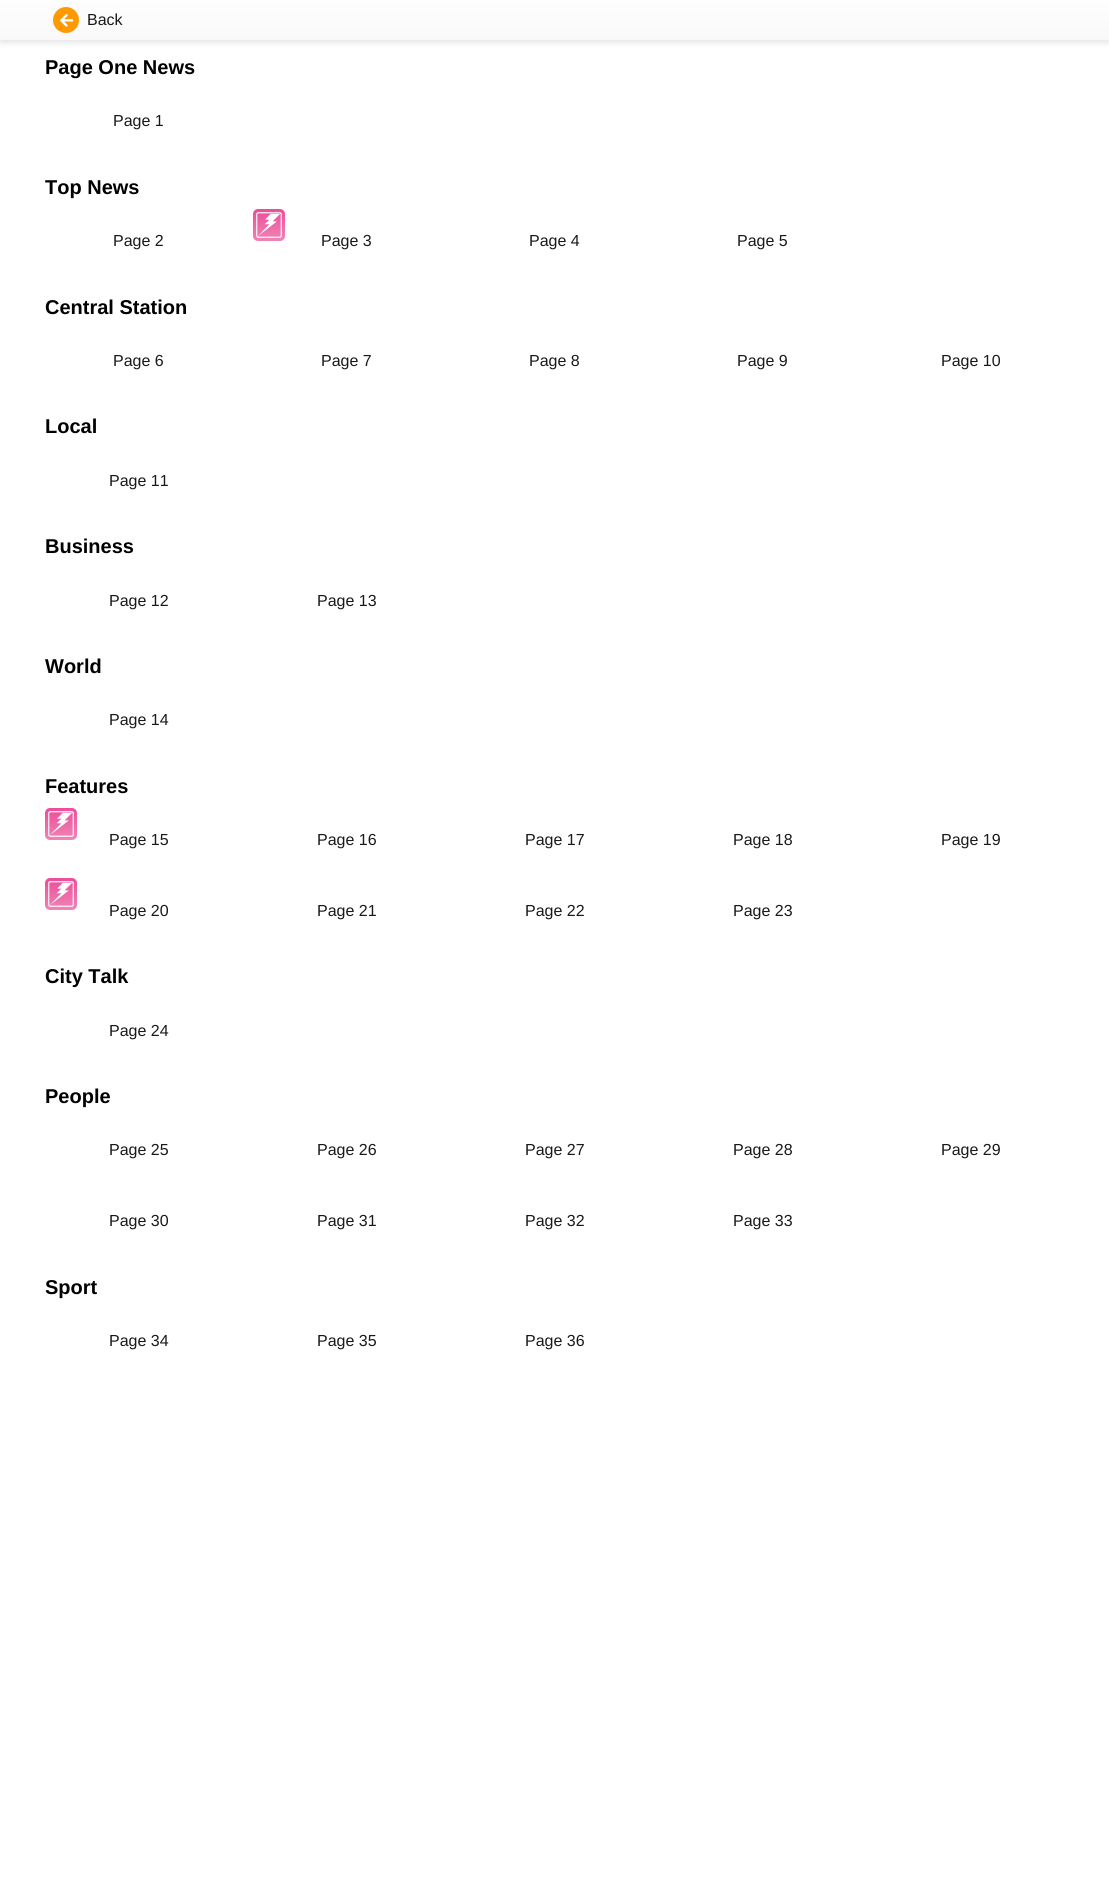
#include <cairo.h>
#include <math.h>
#include <stddef.h>

static cairo_t *ctx;

static void use_color(int r, int g, int b) {
    cairo_set_source_rgb(ctx, r / 255.0, g / 255.0, b / 255.0);
}

static void round_rect(double x, double y, double w, double h, double r) {
    cairo_new_sub_path(ctx);
    cairo_arc(ctx, x + w - r, y + h - r, r, 0, M_PI / 2);
    cairo_arc(ctx, x + r, y + h - r, r, M_PI / 2, M_PI);
    cairo_arc(ctx, x + r, y + r, r, M_PI, 1.5 * M_PI);
    cairo_arc(ctx, x + w - r, y + r, r, 1.5 * M_PI, 2 * M_PI);
    cairo_close_path(ctx);
}

static void shadow(double x, double y, double w, double h, double r, double blur, double alpha) {
    cairo_push_group_with_content(ctx, CAIRO_CONTENT_ALPHA);
    cairo_set_operator(ctx, CAIRO_OPERATOR_SOURCE);
    for (int i = 15; i >= -15 && fmin(w, h) + blur * i / 3 > 0; i -= 2) {
        double e = blur * i / 6;
        cairo_set_source_rgba(ctx, 0, 0, 0, alpha * erfc((i - 1) / 8.5) / 2);
        round_rect(x - e, y - e, w + 2 * e, h + 2 * e, fmax(0, fmin(r + e + blur * .6, fmin(w, h) / 2 + e)));
        cairo_fill(ctx);
    }
    cairo_pattern_t *soft = cairo_pop_group(ctx);
    cairo_mask(ctx, soft);
    cairo_pattern_destroy(soft);
}

static void picture(const char *path, double x, double y, double w, double h) {
    cairo_surface_t *image = cairo_image_surface_create_from_png(path);
    cairo_save(ctx);
    cairo_set_source_surface(ctx, image, x, y);
    cairo_rectangle(ctx, x, y, w, h);
    cairo_fill(ctx);
    cairo_restore(ctx);
    cairo_surface_destroy(image);
}

int main(void) {
    cairo_surface_t *surface = cairo_image_surface_create(CAIRO_FORMAT_RGB24, 1109, 1900);
    ctx = cairo_create(surface);
    cairo_font_options_t *options = cairo_font_options_create();
    cairo_font_options_set_hint_metrics(options, CAIRO_HINT_METRICS_OFF);
    cairo_font_options_set_hint_style(options, CAIRO_HINT_STYLE_NONE);
    cairo_set_font_options(ctx, options);
    cairo_set_miter_limit(ctx, 4);
    cairo_pattern_t *gradient;
    use_color(255, 255, 255);
    cairo_paint(ctx);
    use_color(0, 0, 0);
    shadow(0, 3, 1109, 40, 0, 3, 0.1);
    gradient = cairo_pattern_create_linear(555, 0, 555, 40);
    cairo_pattern_add_color_stop_rgba(gradient, 0, 0.996, 0.996, 0.996, 1);
    cairo_pattern_add_color_stop_rgba(gradient, 1, 0.976, 0.976, 0.976, 1);
    cairo_set_source(ctx, gradient);
    cairo_pattern_destroy(gradient);
    cairo_rectangle(ctx, 0, 0, 1109, 40);
    cairo_fill(ctx);
    picture("img1.png", 53, 7, 26, 26);
    cairo_select_font_face(ctx, "Liberation Sans", CAIRO_FONT_SLANT_NORMAL, CAIRO_FONT_WEIGHT_NORMAL);
    cairo_set_font_size(ctx, 16);
    use_color(25, 25, 25);
    cairo_move_to(ctx, 87, 25);
    cairo_show_text(ctx, "Back");
    cairo_select_font_face(ctx, "Liberation Sans", CAIRO_FONT_SLANT_NORMAL, CAIRO_FONT_WEIGHT_BOLD);
    cairo_set_font_size(ctx, 20);
    use_color(0, 0, 0);
    cairo_move_to(ctx, 45, 74);
    cairo_show_text(ctx, "Page One News");
    cairo_select_font_face(ctx, "Liberation Sans", CAIRO_FONT_SLANT_NORMAL, CAIRO_FONT_WEIGHT_NORMAL);
    cairo_set_font_size(ctx, 16);
    use_color(25, 25, 25);
    cairo_move_to(ctx, 113, 126);
    cairo_show_text(ctx, "Page 1");
    cairo_select_font_face(ctx, "Liberation Sans", CAIRO_FONT_SLANT_NORMAL, CAIRO_FONT_WEIGHT_BOLD);
    cairo_set_font_size(ctx, 20);
    use_color(0, 0, 0);
    cairo_move_to(ctx, 45, 194);
    cairo_show_text(ctx, "Top News");
    cairo_select_font_face(ctx, "Liberation Sans", CAIRO_FONT_SLANT_NORMAL, CAIRO_FONT_WEIGHT_NORMAL);
    cairo_set_font_size(ctx, 16);
    use_color(25, 25, 25);
    cairo_move_to(ctx, 113, 246);
    cairo_show_text(ctx, "Page 2");
    picture("img2.png", 253, 209, 32, 32);
    cairo_move_to(ctx, 321, 246);
    cairo_show_text(ctx, "Page 3");
    cairo_move_to(ctx, 529, 246);
    cairo_show_text(ctx, "Page 4");
    cairo_move_to(ctx, 737, 246);
    cairo_show_text(ctx, "Page 5");
    cairo_select_font_face(ctx, "Liberation Sans", CAIRO_FONT_SLANT_NORMAL, CAIRO_FONT_WEIGHT_BOLD);
    cairo_set_font_size(ctx, 20);
    use_color(0, 0, 0);
    cairo_move_to(ctx, 45, 314);
    cairo_show_text(ctx, "Central Station");
    cairo_select_font_face(ctx, "Liberation Sans", CAIRO_FONT_SLANT_NORMAL, CAIRO_FONT_WEIGHT_NORMAL);
    cairo_set_font_size(ctx, 16);
    use_color(25, 25, 25);
    cairo_move_to(ctx, 113, 366);
    cairo_show_text(ctx, "Page 6");
    cairo_move_to(ctx, 321, 366);
    cairo_show_text(ctx, "Page 7");
    cairo_move_to(ctx, 529, 366);
    cairo_show_text(ctx, "Page 8");
    cairo_move_to(ctx, 737, 366);
    cairo_show_text(ctx, "Page 9");
    cairo_move_to(ctx, 941, 366);
    cairo_show_text(ctx, "Page 10");
    cairo_select_font_face(ctx, "Liberation Sans", CAIRO_FONT_SLANT_NORMAL, CAIRO_FONT_WEIGHT_BOLD);
    cairo_set_font_size(ctx, 20);
    use_color(0, 0, 0);
    cairo_move_to(ctx, 45, 433);
    cairo_show_text(ctx, "Local");
    cairo_select_font_face(ctx, "Liberation Sans", CAIRO_FONT_SLANT_NORMAL, CAIRO_FONT_WEIGHT_NORMAL);
    cairo_set_font_size(ctx, 16);
    use_color(25, 25, 25);
    cairo_move_to(ctx, 109, 486);
    cairo_show_text(ctx, "Page 11");
    cairo_select_font_face(ctx, "Liberation Sans", CAIRO_FONT_SLANT_NORMAL, CAIRO_FONT_WEIGHT_BOLD);
    cairo_set_font_size(ctx, 20);
    use_color(0, 0, 0);
    cairo_move_to(ctx, 45, 553);
    cairo_show_text(ctx, "Business");
    cairo_select_font_face(ctx, "Liberation Sans", CAIRO_FONT_SLANT_NORMAL, CAIRO_FONT_WEIGHT_NORMAL);
    cairo_set_font_size(ctx, 16);
    use_color(25, 25, 25);
    cairo_move_to(ctx, 109, 606);
    cairo_show_text(ctx, "Page 12");
    cairo_move_to(ctx, 317, 606);
    cairo_show_text(ctx, "Page 13");
    cairo_select_font_face(ctx, "Liberation Sans", CAIRO_FONT_SLANT_NORMAL, CAIRO_FONT_WEIGHT_BOLD);
    cairo_set_font_size(ctx, 20);
    use_color(0, 0, 0);
    cairo_move_to(ctx, 45, 673);
    cairo_show_text(ctx, "World");
    cairo_select_font_face(ctx, "Liberation Sans", CAIRO_FONT_SLANT_NORMAL, CAIRO_FONT_WEIGHT_NORMAL);
    cairo_set_font_size(ctx, 16);
    use_color(25, 25, 25);
    cairo_move_to(ctx, 109, 725);
    cairo_show_text(ctx, "Page 14");
    cairo_select_font_face(ctx, "Liberation Sans", CAIRO_FONT_SLANT_NORMAL, CAIRO_FONT_WEIGHT_BOLD);
    cairo_set_font_size(ctx, 20);
    use_color(0, 0, 0);
    cairo_move_to(ctx, 45, 793);
    cairo_show_text(ctx, "Features");
    picture("img2.png", 45, 808, 32, 32);
    cairo_select_font_face(ctx, "Liberation Sans", CAIRO_FONT_SLANT_NORMAL, CAIRO_FONT_WEIGHT_NORMAL);
    cairo_set_font_size(ctx, 16);
    use_color(25, 25, 25);
    cairo_move_to(ctx, 109, 845);
    cairo_show_text(ctx, "Page 15");
    cairo_move_to(ctx, 317, 845);
    cairo_show_text(ctx, "Page 16");
    cairo_move_to(ctx, 525, 845);
    cairo_show_text(ctx, "Page 17");
    cairo_move_to(ctx, 733, 845);
    cairo_show_text(ctx, "Page 18");
    cairo_move_to(ctx, 941, 845);
    cairo_show_text(ctx, "Page 19");
    picture("img2.png", 45, 878, 32, 32);
    cairo_move_to(ctx, 109, 916);
    cairo_show_text(ctx, "Page 20");
    cairo_move_to(ctx, 317, 916);
    cairo_show_text(ctx, "Page 21");
    cairo_move_to(ctx, 525, 916);
    cairo_show_text(ctx, "Page 22");
    cairo_move_to(ctx, 733, 916);
    cairo_show_text(ctx, "Page 23");
    cairo_select_font_face(ctx, "Liberation Sans", CAIRO_FONT_SLANT_NORMAL, CAIRO_FONT_WEIGHT_BOLD);
    cairo_set_font_size(ctx, 20);
    use_color(0, 0, 0);
    cairo_move_to(ctx, 45, 983);
    cairo_show_text(ctx, "City Talk");
    cairo_select_font_face(ctx, "Liberation Sans", CAIRO_FONT_SLANT_NORMAL, CAIRO_FONT_WEIGHT_NORMAL);
    cairo_set_font_size(ctx, 16);
    use_color(25, 25, 25);
    cairo_move_to(ctx, 109, 1036);
    cairo_show_text(ctx, "Page 24");
    cairo_select_font_face(ctx, "Liberation Sans", CAIRO_FONT_SLANT_NORMAL, CAIRO_FONT_WEIGHT_BOLD);
    cairo_set_font_size(ctx, 20);
    use_color(0, 0, 0);
    cairo_move_to(ctx, 45, 1103);
    cairo_show_text(ctx, "People");
    cairo_select_font_face(ctx, "Liberation Sans", CAIRO_FONT_SLANT_NORMAL, CAIRO_FONT_WEIGHT_NORMAL);
    cairo_set_font_size(ctx, 16);
    use_color(25, 25, 25);
    cairo_move_to(ctx, 109, 1155);
    cairo_show_text(ctx, "Page 25");
    cairo_move_to(ctx, 317, 1155);
    cairo_show_text(ctx, "Page 26");
    cairo_move_to(ctx, 525, 1155);
    cairo_show_text(ctx, "Page 27");
    cairo_move_to(ctx, 733, 1155);
    cairo_show_text(ctx, "Page 28");
    cairo_move_to(ctx, 941, 1155);
    cairo_show_text(ctx, "Page 29");
    cairo_move_to(ctx, 109, 1226);
    cairo_show_text(ctx, "Page 30");
    cairo_move_to(ctx, 317, 1226);
    cairo_show_text(ctx, "Page 31");
    cairo_move_to(ctx, 525, 1226);
    cairo_show_text(ctx, "Page 32");
    cairo_move_to(ctx, 733, 1226);
    cairo_show_text(ctx, "Page 33");
    cairo_select_font_face(ctx, "Liberation Sans", CAIRO_FONT_SLANT_NORMAL, CAIRO_FONT_WEIGHT_BOLD);
    cairo_set_font_size(ctx, 20);
    use_color(0, 0, 0);
    cairo_move_to(ctx, 45, 1294);
    cairo_show_text(ctx, "Sport");
    cairo_select_font_face(ctx, "Liberation Sans", CAIRO_FONT_SLANT_NORMAL, CAIRO_FONT_WEIGHT_NORMAL);
    cairo_set_font_size(ctx, 16);
    use_color(25, 25, 25);
    cairo_move_to(ctx, 109, 1346);
    cairo_show_text(ctx, "Page 34");
    cairo_move_to(ctx, 317, 1346);
    cairo_show_text(ctx, "Page 35");
    cairo_move_to(ctx, 525, 1346);
    cairo_show_text(ctx, "Page 36");
    cairo_surface_write_to_png(surface, "result.png");
    cairo_font_options_destroy(options);
    cairo_destroy(ctx);
    cairo_surface_destroy(surface);
    return 0;
}
